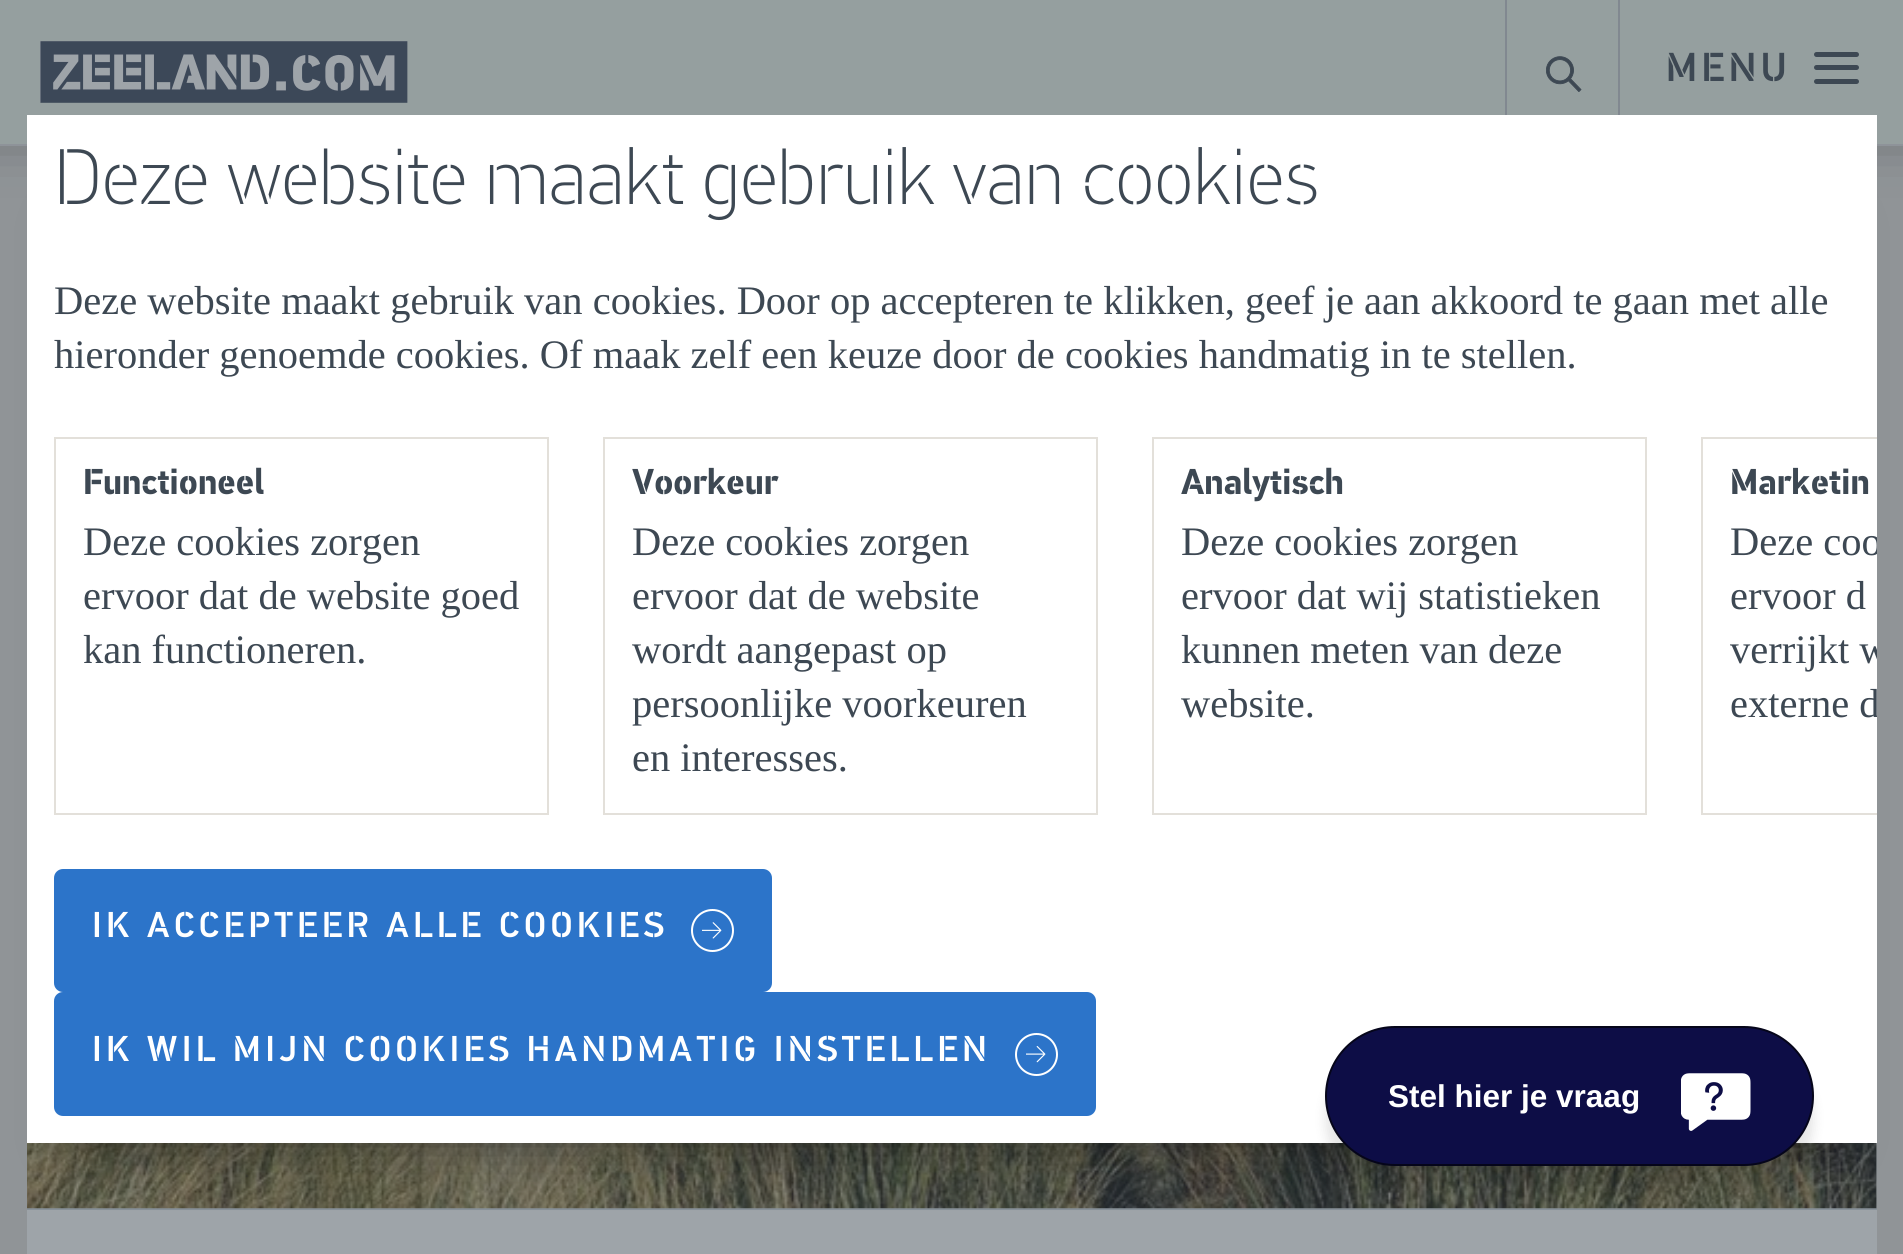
#include <cairo.h>
#include <math.h>
#include <stddef.h>

static cairo_t *ctx;

static void use_color(int r, int g, int b) {
    cairo_set_source_rgb(ctx, r / 255.0, g / 255.0, b / 255.0);
}

static void spaced_text(double x, double y, const char *s, double letter, double word) {
    cairo_move_to(ctx, x, y);
    while (*s) {
        char ch[5] = {0};
        int n = 0;
        do ch[n++] = *s++; while ((*s & 0xC0) == 0x80);
        cairo_show_text(ctx, ch);
        cairo_rel_move_to(ctx, letter + word * (*ch == ' '), 0);
    }
}

static void round_rect(double x, double y, double w, double h, double r) {
    cairo_new_sub_path(ctx);
    cairo_arc(ctx, x + w - r, y + h - r, r, 0, M_PI / 2);
    cairo_arc(ctx, x + r, y + h - r, r, M_PI / 2, M_PI);
    cairo_arc(ctx, x + r, y + r, r, M_PI, 1.5 * M_PI);
    cairo_arc(ctx, x + w - r, y + r, r, 1.5 * M_PI, 2 * M_PI);
    cairo_close_path(ctx);
}

static void shadow(double x, double y, double w, double h, double r, double blur, double alpha) {
    cairo_push_group_with_content(ctx, CAIRO_CONTENT_ALPHA);
    cairo_set_operator(ctx, CAIRO_OPERATOR_SOURCE);
    for (int i = 15; i >= -15 && fmin(w, h) + blur * i / 3 > 0; i -= 2) {
        double e = blur * i / 6;
        cairo_set_source_rgba(ctx, 0, 0, 0, alpha * erfc((i - 1) / 8.5) / 2);
        round_rect(x - e, y - e, w + 2 * e, h + 2 * e, fmax(0, fmin(r + e + blur * .6, fmin(w, h) / 2 + e)));
        cairo_fill(ctx);
    }
    cairo_pattern_t *soft = cairo_pop_group(ctx);
    cairo_mask(ctx, soft);
    cairo_pattern_destroy(soft);
}

static void picture(const char *path, double x, double y, double w, double h) {
    cairo_surface_t *image = cairo_image_surface_create_from_png(path);
    cairo_save(ctx);
    cairo_set_source_surface(ctx, image, x, y);
    cairo_rectangle(ctx, x, y, w, h);
    cairo_fill(ctx);
    cairo_restore(ctx);
    cairo_surface_destroy(image);
}

int main(void) {
    cairo_surface_t *surface = cairo_image_surface_create(CAIRO_FORMAT_RGB24, 1903, 1254);
    ctx = cairo_create(surface);
    cairo_font_options_t *options = cairo_font_options_create();
    cairo_font_options_set_hint_metrics(options, CAIRO_HINT_METRICS_OFF);
    cairo_font_options_set_hint_style(options, CAIRO_HINT_STYLE_NONE);
    cairo_set_font_options(ctx, options);
    cairo_set_miter_limit(ctx, 4);
    use_color(144, 148, 151);
    cairo_paint(ctx);
    use_color(31, 36, 42);
    shadow(-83, -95, 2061, 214, 0, 31.5, 0.75);
    use_color(142, 147, 153);
    cairo_rectangle(ctx, 0, 144, 1903, 2);
    cairo_fill(ctx);
    use_color(149, 159, 159);
    cairo_rectangle(ctx, 0, 0, 1903, 144);
    cairo_fill(ctx);
    picture("img1.png", 40, 41, 368, 62);
    use_color(129, 136, 144);
    cairo_rectangle(ctx, 1505, 0, 2, 115);
    cairo_fill(ctx);
    picture("img2.png", 1546, 56, 36, 36);
    cairo_rectangle(ctx, 1618, 0, 2, 115);
    cairo_fill(ctx);
    cairo_select_font_face(ctx, "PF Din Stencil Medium", CAIRO_FONT_SLANT_NORMAL, CAIRO_FONT_WEIGHT_NORMAL);
    cairo_set_font_size(ctx, 40.5);
    use_color(61, 72, 83);
    spaced_text(1666, 81, "MENU", 4.5, 0);
    round_rect(1814, 65, 45, 5, 2.5);
    cairo_fill(ctx);
    round_rect(1814, 52, 45, 5, 2.5);
    cairo_fill(ctx);
    round_rect(1814, 79, 45, 5, 2.5);
    cairo_fill(ctx);
    use_color(158, 164, 169);
    cairo_rectangle(ctx, 27, 1143, 1850, 111);
    cairo_fill(ctx);
    use_color(136, 145, 153);
    cairo_rectangle(ctx, 27, 1208, 1850, 2);
    cairo_fill(ctx);
    picture("img3.png", 27, 1143, 1850, 66);
    use_color(0, 0, 0);
    shadow(81, 223, 1742, 920, 0, 27, 0.5);
    use_color(255, 255, 255);
    cairo_rectangle(ctx, 27, 115, 1850, 1028);
    cairo_fill(ctx);
    cairo_select_font_face(ctx, "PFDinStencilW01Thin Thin", CAIRO_FONT_SLANT_NORMAL, CAIRO_FONT_WEIGHT_NORMAL);
    cairo_set_font_size(ctx, 78.75);
    use_color(61, 72, 83);
    cairo_move_to(ctx, 54, 204);
    cairo_show_text(ctx, "Deze website maakt gebruik van cookies");
    cairo_select_font_face(ctx, "Liberation Serif", CAIRO_FONT_SLANT_NORMAL, CAIRO_FONT_WEIGHT_NORMAL);
    cairo_set_font_size(ctx, 40.5);
    cairo_move_to(ctx, 54, 314);
    cairo_show_text(ctx, "Deze website maakt gebruik van cookies. Door op accepteren te klikken, geef je aan akkoord te gaan met alle");
    cairo_move_to(ctx, 54, 368);
    cairo_show_text(ctx, "hieronder genoemde cookies. Of maak zelf een keuze door de cookies handmatig in te stellen.");
    cairo_rectangle(ctx, 55, 438, 493, 376);
    use_color(227, 224, 218);
    cairo_stroke(ctx);
    cairo_select_font_face(ctx, "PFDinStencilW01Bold", CAIRO_FONT_SLANT_NORMAL, CAIRO_FONT_WEIGHT_BOLD);
    cairo_set_font_size(ctx, 36);
    use_color(61, 72, 83);
    cairo_move_to(ctx, 83, 494);
    cairo_show_text(ctx, "Functioneel");
    cairo_select_font_face(ctx, "Liberation Serif", CAIRO_FONT_SLANT_NORMAL, CAIRO_FONT_WEIGHT_NORMAL);
    cairo_set_font_size(ctx, 40.5);
    cairo_move_to(ctx, 83, 555);
    cairo_show_text(ctx, "Deze cookies zorgen");
    cairo_move_to(ctx, 83, 609);
    cairo_show_text(ctx, "ervoor dat de website goed");
    cairo_move_to(ctx, 83, 663);
    cairo_show_text(ctx, "kan functioneren.");
    cairo_rectangle(ctx, 604, 438, 493, 376);
    use_color(227, 224, 218);
    cairo_stroke(ctx);
    cairo_select_font_face(ctx, "PFDinStencilW01Bold", CAIRO_FONT_SLANT_NORMAL, CAIRO_FONT_WEIGHT_BOLD);
    cairo_set_font_size(ctx, 36);
    use_color(61, 72, 83);
    cairo_move_to(ctx, 632, 494);
    cairo_show_text(ctx, "Voorkeur");
    cairo_select_font_face(ctx, "Liberation Serif", CAIRO_FONT_SLANT_NORMAL, CAIRO_FONT_WEIGHT_NORMAL);
    cairo_set_font_size(ctx, 40.5);
    cairo_move_to(ctx, 632, 555);
    cairo_show_text(ctx, "Deze cookies zorgen");
    cairo_move_to(ctx, 632, 609);
    cairo_show_text(ctx, "ervoor dat de website");
    cairo_move_to(ctx, 632, 663);
    cairo_show_text(ctx, "wordt aangepast op");
    cairo_move_to(ctx, 632, 717);
    cairo_show_text(ctx, "persoonlijke voorkeuren");
    cairo_move_to(ctx, 632, 771);
    cairo_show_text(ctx, "en interesses.");
    cairo_rectangle(ctx, 1153, 438, 493, 376);
    use_color(227, 224, 218);
    cairo_stroke(ctx);
    cairo_select_font_face(ctx, "PFDinStencilW01Bold", CAIRO_FONT_SLANT_NORMAL, CAIRO_FONT_WEIGHT_BOLD);
    cairo_set_font_size(ctx, 36);
    use_color(61, 72, 83);
    cairo_move_to(ctx, 1181, 494);
    cairo_show_text(ctx, "Analytisch");
    cairo_select_font_face(ctx, "Liberation Serif", CAIRO_FONT_SLANT_NORMAL, CAIRO_FONT_WEIGHT_NORMAL);
    cairo_set_font_size(ctx, 40.5);
    cairo_move_to(ctx, 1181, 555);
    cairo_show_text(ctx, "Deze cookies zorgen");
    cairo_move_to(ctx, 1181, 609);
    cairo_show_text(ctx, "ervoor dat wij statistieken");
    cairo_move_to(ctx, 1181, 663);
    cairo_show_text(ctx, "kunnen meten van deze");
    cairo_move_to(ctx, 1181, 717);
    cairo_show_text(ctx, "website.");
    cairo_save(ctx);
    cairo_rectangle(ctx, 27, 437, 1850, 432);
    cairo_clip(ctx);
    cairo_rectangle(ctx, 1702, 438, 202, 376);
    use_color(227, 224, 218);
    cairo_stroke(ctx);
    cairo_restore(ctx);
    cairo_select_font_face(ctx, "PFDinStencilW01Bold", CAIRO_FONT_SLANT_NORMAL, CAIRO_FONT_WEIGHT_BOLD);
    cairo_set_font_size(ctx, 36);
    cairo_move_to(ctx, 1730, 494);
    cairo_show_text(ctx, "Marketin");
    cairo_save(ctx);
    cairo_rectangle(ctx, 27, 437, 1850, 432);
    cairo_clip(ctx);
    cairo_select_font_face(ctx, "Liberation Serif", CAIRO_FONT_SLANT_NORMAL, CAIRO_FONT_WEIGHT_NORMAL);
    cairo_set_font_size(ctx, 40.5);
    cairo_move_to(ctx, 1730, 555);
    cairo_show_text(ctx, "Deze coo");
    cairo_restore(ctx);
    cairo_select_font_face(ctx, "Liberation Serif", CAIRO_FONT_SLANT_NORMAL, CAIRO_FONT_WEIGHT_NORMAL);
    cairo_set_font_size(ctx, 40.5);
    cairo_move_to(ctx, 1730, 609);
    cairo_show_text(ctx, "ervoor d");
    cairo_save(ctx);
    cairo_rectangle(ctx, 27, 437, 1850, 432);
    cairo_clip(ctx);
    cairo_move_to(ctx, 1730, 663);
    cairo_show_text(ctx, "verrijkt w");
    cairo_move_to(ctx, 1730, 717);
    cairo_show_text(ctx, "externe d");
    cairo_restore(ctx);
    use_color(44, 116, 201);
    round_rect(55, 870, 716, 121, 8);
    cairo_fill_preserve(ctx);
    cairo_stroke(ctx);
    cairo_select_font_face(ctx, "PF Din Stencil Medium", CAIRO_FONT_SLANT_NORMAL, CAIRO_FONT_WEIGHT_NORMAL);
    cairo_set_font_size(ctx, 36);
    use_color(255, 255, 255);
    spaced_text(92, 937, "IK ACCEPTEER ALLE COOKIES", 4.5, 0);
    cairo_new_path(ctx);
    cairo_arc(ctx, 712.5, 930.5, 20.5, 0, 2 * M_PI);
    cairo_stroke(ctx);
    picture("img4.png", 702, 922, 20, 17);
    use_color(44, 116, 201);
    round_rect(55, 993, 1040, 122, 8);
    cairo_fill_preserve(ctx);
    cairo_stroke(ctx);
    use_color(255, 255, 255);
    spaced_text(92, 1061, "IK WIL MIJN COOKIES HANDMATIG INSTELLEN", 4.5, 0);
    cairo_new_path(ctx);
    cairo_arc(ctx, 1036.5, 1054.5, 20.5, 0, 2 * M_PI);
    cairo_stroke(ctx);
    picture("img5.png", 1026, 1046, 20, 17);
    use_color(0, 0, 0);
    shadow(1325, 1049, 489, 139, 69.5, 5.5, 0.1);
    use_color(13, 13, 70);
    round_rect(1326, 1027, 487, 138, 69);
    cairo_fill_preserve(ctx);
    use_color(5, 5, 26);
    cairo_stroke(ctx);
    cairo_select_font_face(ctx, "Liberation Sans", CAIRO_FONT_SLANT_NORMAL, CAIRO_FONT_WEIGHT_BOLD);
    cairo_set_font_size(ctx, 31.5);
    use_color(255, 255, 255);
    cairo_move_to(ctx, 1388, 1107);
    cairo_show_text(ctx, "Stel hier je vraag");
    picture("img6.png", 1681, 1073, 70, 58);
    cairo_surface_write_to_png(surface, "result.png");
    cairo_font_options_destroy(options);
    cairo_destroy(ctx);
    cairo_surface_destroy(surface);
    return 0;
}
